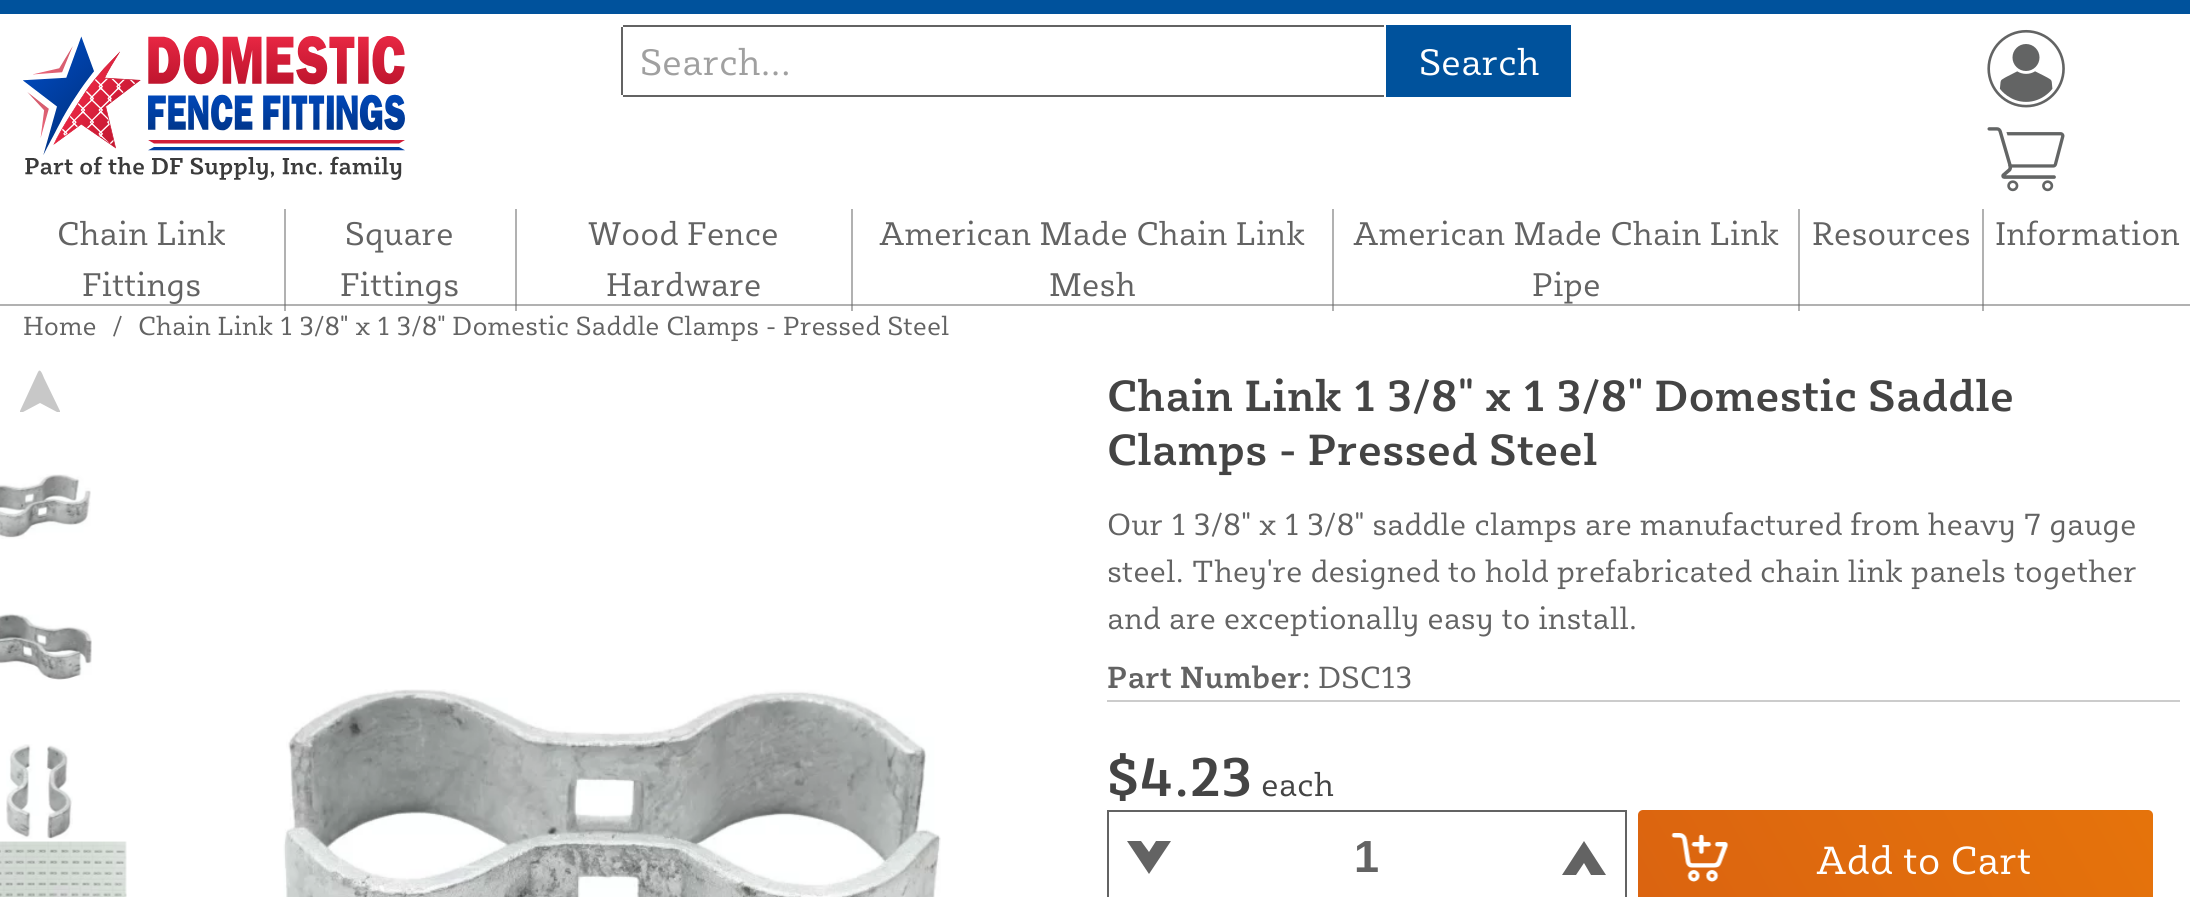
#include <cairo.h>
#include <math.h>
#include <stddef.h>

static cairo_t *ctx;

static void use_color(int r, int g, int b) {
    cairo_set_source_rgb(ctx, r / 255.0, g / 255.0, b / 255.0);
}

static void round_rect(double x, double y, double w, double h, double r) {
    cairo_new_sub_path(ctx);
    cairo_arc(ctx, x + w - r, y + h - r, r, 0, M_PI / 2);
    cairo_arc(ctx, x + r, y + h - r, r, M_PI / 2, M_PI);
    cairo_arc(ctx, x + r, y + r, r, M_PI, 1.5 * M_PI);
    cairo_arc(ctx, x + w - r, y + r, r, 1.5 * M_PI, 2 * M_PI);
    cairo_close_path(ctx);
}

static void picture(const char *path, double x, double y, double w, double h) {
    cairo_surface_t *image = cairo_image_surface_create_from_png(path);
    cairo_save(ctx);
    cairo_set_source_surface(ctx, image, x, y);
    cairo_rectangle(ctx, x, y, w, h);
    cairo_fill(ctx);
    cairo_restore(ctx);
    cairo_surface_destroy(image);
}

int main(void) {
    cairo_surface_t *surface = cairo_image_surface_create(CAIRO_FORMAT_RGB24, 2190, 897);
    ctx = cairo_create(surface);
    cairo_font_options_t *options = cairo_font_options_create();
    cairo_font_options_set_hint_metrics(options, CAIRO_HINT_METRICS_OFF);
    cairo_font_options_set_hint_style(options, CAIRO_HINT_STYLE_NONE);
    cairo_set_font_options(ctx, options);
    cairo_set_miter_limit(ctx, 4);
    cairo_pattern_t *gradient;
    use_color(255, 255, 255);
    cairo_paint(ctx);
    use_color(177, 177, 177);
    cairo_rectangle(ctx, 1982, 209, 2, 102);
    cairo_fill(ctx);
    cairo_rectangle(ctx, 1798, 209, 2, 102);
    cairo_fill(ctx);
    cairo_rectangle(ctx, 1332, 209, 2, 102);
    cairo_fill(ctx);
    cairo_rectangle(ctx, 851, 209, 2, 102);
    cairo_fill(ctx);
    cairo_rectangle(ctx, 515, 209, 2, 102);
    cairo_fill(ctx);
    cairo_rectangle(ctx, 284, 209, 2, 102);
    cairo_fill(ctx);
    use_color(0, 82, 156);
    cairo_rectangle(ctx, 0, 0, 2190, 14);
    cairo_fill(ctx);
    use_color(177, 177, 177);
    cairo_rectangle(ctx, 0, 304, 2190, 2);
    cairo_fill(ctx);
    use_color(138, 138, 138);
    cairo_rectangle(ctx, 1982, 304, 2, 2);
    cairo_fill(ctx);
    cairo_rectangle(ctx, 1798, 304, 2, 2);
    cairo_fill(ctx);
    cairo_rectangle(ctx, 1332, 304, 2, 2);
    cairo_fill(ctx);
    cairo_rectangle(ctx, 851, 304, 2, 2);
    cairo_fill(ctx);
    cairo_rectangle(ctx, 515, 304, 2, 2);
    cairo_fill(ctx);
    cairo_rectangle(ctx, 284, 304, 2, 2);
    cairo_fill(ctx);
    picture("img1.png", 23, 36, 382, 144);
    use_color(99, 99, 99);
    cairo_rectangle(ctx, 623, 25, 761, 2);
    cairo_fill(ctx);
    cairo_rectangle(ctx, 623, 95, 761, 2);
    cairo_fill(ctx);
    cairo_rectangle(ctx, 621, 27, 2, 68);
    cairo_fill(ctx);
    cairo_select_font_face(ctx, "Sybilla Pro", CAIRO_FONT_SLANT_NORMAL, CAIRO_FONT_WEIGHT_NORMAL);
    cairo_set_font_size(ctx, 38);
    use_color(160, 160, 160);
    cairo_move_to(ctx, 640, 75);
    cairo_show_text(ctx, "Search...");
    gradient = cairo_pattern_create_linear(1055, 199, 1532, -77);
    cairo_pattern_add_color_stop_rgba(gradient, 0, 0, 0.322, 0.612, 1);
    cairo_pattern_add_color_stop_rgba(gradient, 0.13, 0, 0.322, 0.612, 1);
    cairo_pattern_add_color_stop_rgba(gradient, 0.2, 0, 0.486, 0.91, 1);
    cairo_pattern_add_color_stop_rgba(gradient, 0.27, 0, 0.322, 0.612, 1);
    cairo_pattern_add_color_stop_rgba(gradient, 1, 0, 0.322, 0.612, 1);
    cairo_set_source(ctx, gradient);
    cairo_pattern_destroy(gradient);
    cairo_rectangle(ctx, 1386, 25, 185, 72);
    cairo_fill(ctx);
    use_color(255, 255, 255);
    cairo_move_to(ctx, 1419, 75);
    cairo_show_text(ctx, "Search");
    picture("img2.png", 1987, 29, 78, 79);
    picture("img3.png", 1987, 127, 78, 65);
    cairo_set_font_size(ctx, 33.75);
    use_color(99, 99, 99);
    cairo_move_to(ctx, 57, 245);
    cairo_show_text(ctx, "Chain Link");
    cairo_move_to(ctx, 82, 296);
    cairo_show_text(ctx, "Fittings");
    cairo_move_to(ctx, 345, 245);
    cairo_show_text(ctx, "Square");
    cairo_move_to(ctx, 340, 296);
    cairo_show_text(ctx, "Fittings");
    cairo_move_to(ctx, 588, 245);
    cairo_show_text(ctx, "Wood Fence");
    cairo_move_to(ctx, 606, 296);
    cairo_show_text(ctx, "Hardware");
    cairo_move_to(ctx, 879, 245);
    cairo_show_text(ctx, "American Made Chain Link");
    cairo_move_to(ctx, 1049, 296);
    cairo_show_text(ctx, "Mesh");
    cairo_move_to(ctx, 1353, 245);
    cairo_show_text(ctx, "American Made Chain Link");
    cairo_move_to(ctx, 1532, 296);
    cairo_show_text(ctx, "Pipe");
    cairo_move_to(ctx, 1812, 245);
    cairo_show_text(ctx, "Resources");
    cairo_move_to(ctx, 1995, 245);
    cairo_show_text(ctx, "Information");
    cairo_set_font_size(ctx, 27);
    cairo_move_to(ctx, 23, 335);
    cairo_show_text(ctx, "Home");
    cairo_move_to(ctx, 112, 335);
    cairo_show_text(ctx, "/");
    cairo_move_to(ctx, 138, 335);
    cairo_show_text(ctx, "Chain Link 1 3/8\" x 1 3/8\" Domestic Saddle Clamps - Pressed Steel");
    use_color(200, 200, 200);
    cairo_new_path(ctx);
    cairo_move_to(ctx, 38, 372);
    cairo_line_to(ctx, 20, 411);
    cairo_line_to(ctx, 20, 412);
    cairo_line_to(ctx, 23, 412);
    cairo_line_to(ctx, 40, 403);
    cairo_line_to(ctx, 57, 412);
    cairo_line_to(ctx, 60, 412);
    cairo_line_to(ctx, 60, 411);
    cairo_line_to(ctx, 44, 378);
    cairo_curve_to(ctx, 42, 373, 40, 368, 38, 372);
    cairo_close_path(ctx);
    cairo_fill(ctx);
    picture("img4.png", 0, 474, 91, 65);
    picture("img5.png", 0, 613, 92, 67);
    picture("img6.png", 6, 744, 67, 95);
    picture("img7.png", 0, 841, 127, 56);
    picture("img8.png", 283, 689, 658, 208);
    cairo_select_font_face(ctx, "Sybilla Pro Medium", CAIRO_FONT_SLANT_NORMAL, CAIRO_FONT_WEIGHT_NORMAL);
    cairo_set_font_size(ctx, 45);
    use_color(68, 68, 68);
    cairo_move_to(ctx, 1107, 411);
    cairo_show_text(ctx, "Chain Link 1 3/8\" x 1 3/8\" Domestic Saddle");
    cairo_move_to(ctx, 1107, 465);
    cairo_show_text(ctx, "Clamps - Pressed Steel");
    use_color(204, 204, 204);
    cairo_rectangle(ctx, 1107, 700, 1073, 2);
    cairo_fill(ctx);
    cairo_select_font_face(ctx, "Sybilla Pro", CAIRO_FONT_SLANT_NORMAL, CAIRO_FONT_WEIGHT_NORMAL);
    cairo_set_font_size(ctx, 31.5);
    use_color(99, 99, 99);
    cairo_move_to(ctx, 1107, 535);
    cairo_show_text(ctx, "Our 1 3/8\" x 1 3/8\" saddle clamps are manufactured from heavy 7 gauge");
    cairo_move_to(ctx, 1107, 582);
    cairo_show_text(ctx, "steel. They're designed to hold prefabricated chain link panels together");
    cairo_move_to(ctx, 1107, 629);
    cairo_show_text(ctx, "and are exceptionally easy to install.");
    cairo_select_font_face(ctx, "Sybilla Pro Medium", CAIRO_FONT_SLANT_NORMAL, CAIRO_FONT_WEIGHT_NORMAL);
    cairo_move_to(ctx, 1107, 688);
    cairo_show_text(ctx, "Part Number:");
    cairo_select_font_face(ctx, "Sybilla Pro", CAIRO_FONT_SLANT_NORMAL, CAIRO_FONT_WEIGHT_NORMAL);
    cairo_move_to(ctx, 1318, 688);
    cairo_show_text(ctx, "DSC13");
    cairo_select_font_face(ctx, "Sybilla Pro Medium", CAIRO_FONT_SLANT_NORMAL, CAIRO_FONT_WEIGHT_NORMAL);
    cairo_set_font_size(ctx, 56);
    use_color(68, 68, 68);
    cairo_move_to(ctx, 1107, 796);
    cairo_show_text(ctx, "$4.23");
    cairo_select_font_face(ctx, "Sybilla Pro", CAIRO_FONT_SLANT_NORMAL, CAIRO_FONT_WEIGHT_NORMAL);
    cairo_set_font_size(ctx, 33.75);
    cairo_move_to(ctx, 1261, 796);
    cairo_show_text(ctx, "each");
    cairo_rectangle(ctx, 1108, 811, 518, 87);
    use_color(99, 99, 99);
    cairo_stroke(ctx);
    cairo_new_path(ctx);
    cairo_move_to(ctx, 1149, 874);
    cairo_line_to(ctx, 1127, 841);
    cairo_line_to(ctx, 1141, 841);
    cairo_line_to(ctx, 1149, 852);
    cairo_line_to(ctx, 1156, 841);
    cairo_line_to(ctx, 1171, 841);
    cairo_close_path(ctx);
    cairo_fill(ctx);
    cairo_select_font_face(ctx, "Liberation Sans", CAIRO_FONT_SLANT_NORMAL, CAIRO_FONT_WEIGHT_BOLD);
    cairo_set_font_size(ctx, 45);
    cairo_move_to(ctx, 1354, 872);
    cairo_show_text(ctx, "1");
    cairo_new_path(ctx);
    cairo_move_to(ctx, 1584, 841);
    cairo_line_to(ctx, 1606, 875);
    cairo_line_to(ctx, 1591, 875);
    cairo_line_to(ctx, 1584, 863);
    cairo_line_to(ctx, 1576, 875);
    cairo_line_to(ctx, 1562, 875);
    cairo_close_path(ctx);
    cairo_fill(ctx);
    gradient = cairo_pattern_create_linear(759, 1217, 2002, 500);
    cairo_pattern_add_color_stop_rgba(gradient, 0, 0.812, 0.325, 0.082, 1);
    cairo_pattern_add_color_stop_rgba(gradient, 0.13, 0.812, 0.325, 0.082, 1);
    cairo_pattern_add_color_stop_rgba(gradient, 0.2, 0.902, 0.455, 0.043, 1);
    cairo_pattern_add_color_stop_rgba(gradient, 0.27, 0.812, 0.325, 0.082, 1);
    cairo_pattern_add_color_stop_rgba(gradient, 1, 0.902, 0.455, 0.043, 1);
    cairo_set_source(ctx, gradient);
    cairo_pattern_destroy(gradient);
    round_rect(1638, 810, 515, 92, 5);
    cairo_fill(ctx);
    picture("img9.png", 1671, 833, 58, 49);
    cairo_select_font_face(ctx, "Sybilla Pro", CAIRO_FONT_SLANT_NORMAL, CAIRO_FONT_WEIGHT_NORMAL);
    cairo_set_font_size(ctx, 40.5);
    use_color(255, 255, 255);
    cairo_move_to(ctx, 1816, 874);
    cairo_show_text(ctx, "Add to Cart");
    cairo_surface_write_to_png(surface, "result.png");
    cairo_font_options_destroy(options);
    cairo_destroy(ctx);
    cairo_surface_destroy(surface);
    return 0;
}
